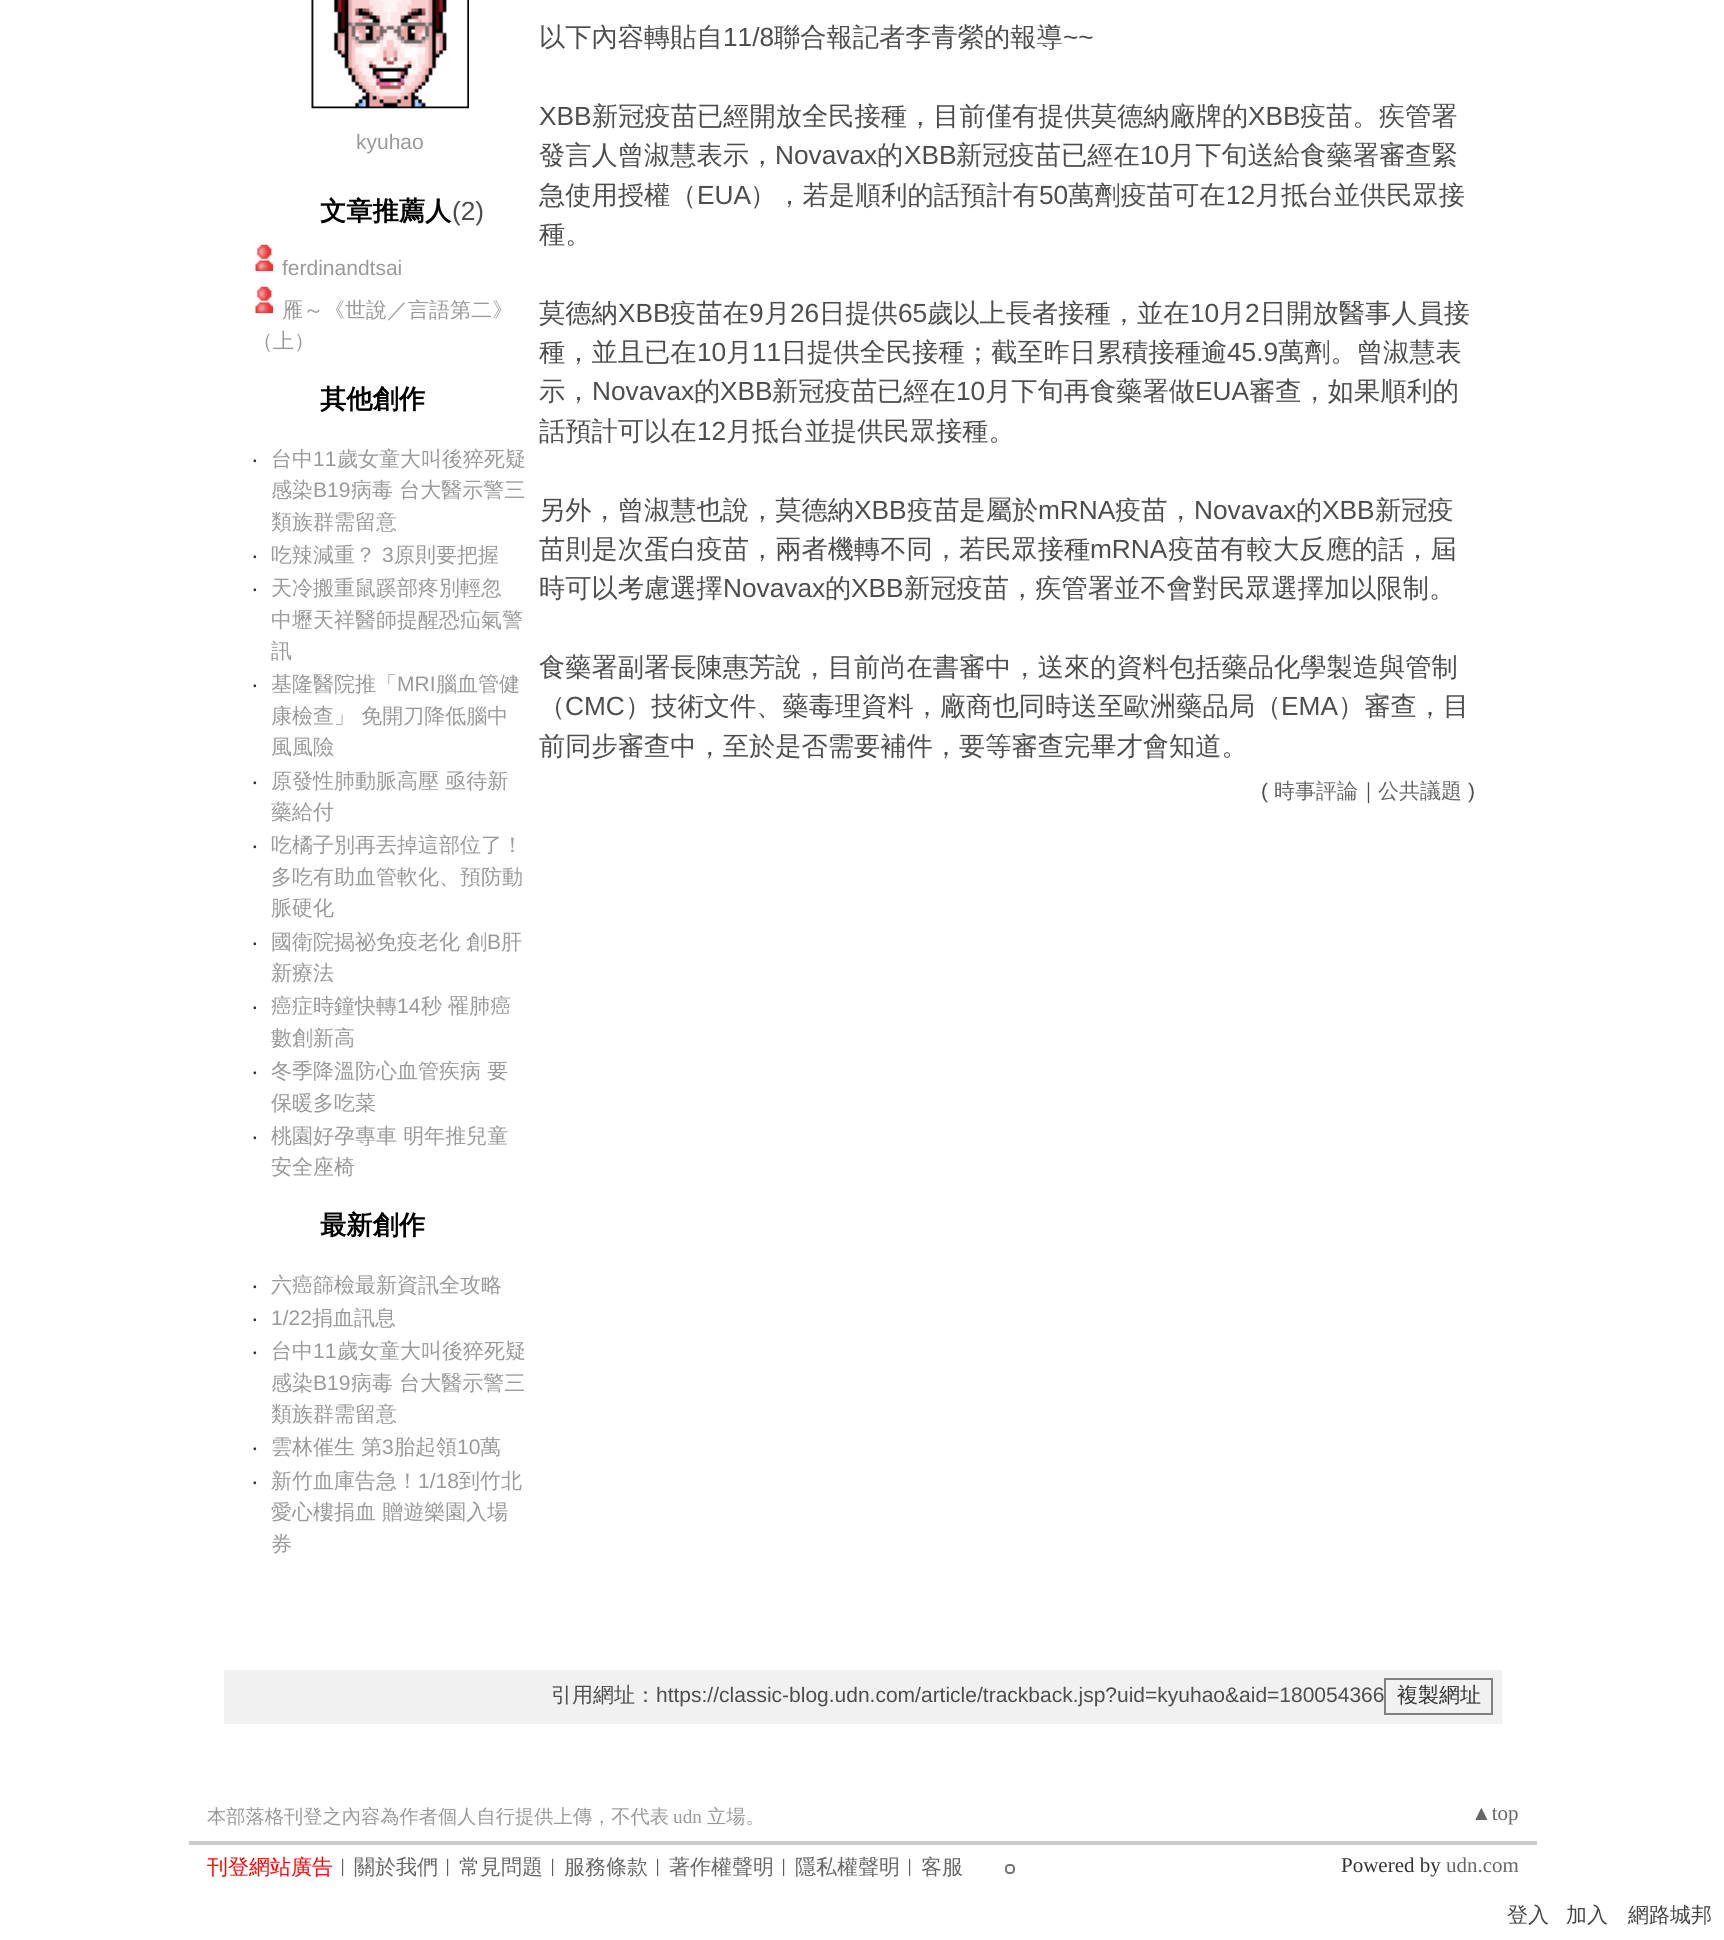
#include <cairo.h>
#include <math.h>
#include <stddef.h>

static cairo_t *ctx;

static void use_color(int r, int g, int b) {
    cairo_set_source_rgb(ctx, r / 255.0, g / 255.0, b / 255.0);
}

static void round_rect(double x, double y, double w, double h, double r) {
    cairo_new_sub_path(ctx);
    cairo_arc(ctx, x + w - r, y + h - r, r, 0, M_PI / 2);
    cairo_arc(ctx, x + r, y + h - r, r, M_PI / 2, M_PI);
    cairo_arc(ctx, x + r, y + r, r, M_PI, 1.5 * M_PI);
    cairo_arc(ctx, x + w - r, y + r, r, 1.5 * M_PI, 2 * M_PI);
    cairo_close_path(ctx);
}

static void picture(const char *path, double x, double y, double w, double h) {
    cairo_surface_t *image = cairo_image_surface_create_from_png(path);
    cairo_save(ctx);
    cairo_set_source_surface(ctx, image, x, y);
    cairo_rectangle(ctx, x, y, w, h);
    cairo_fill(ctx);
    cairo_restore(ctx);
    cairo_surface_destroy(image);
}

int main(void) {
    cairo_surface_t *surface = cairo_image_surface_create(CAIRO_FORMAT_RGB24, 1724, 1940);
    ctx = cairo_create(surface);
    cairo_font_options_t *options = cairo_font_options_create();
    cairo_font_options_set_hint_metrics(options, CAIRO_HINT_METRICS_OFF);
    cairo_font_options_set_hint_style(options, CAIRO_HINT_STYLE_NONE);
    cairo_set_font_options(ctx, options);
    cairo_set_miter_limit(ctx, 4);
    use_color(255, 255, 255);
    cairo_paint(ctx);
    picture("img1.png", 311, 0, 158, 109);
    cairo_select_font_face(ctx, "Liberation Sans", CAIRO_FONT_SLANT_NORMAL, CAIRO_FONT_WEIGHT_NORMAL);
    cairo_set_font_size(ctx, 21);
    use_color(153, 153, 153);
    cairo_move_to(ctx, 356, 149);
    cairo_show_text(ctx, "kyuhao");
    cairo_select_font_face(ctx, "WenQuanYi Zen Hei", CAIRO_FONT_SLANT_NORMAL, CAIRO_FONT_WEIGHT_BOLD);
    cairo_set_font_size(ctx, 26.25);
    use_color(0, 0, 0);
    cairo_move_to(ctx, 320, 220);
    cairo_show_text(ctx, "文章推薦人");
    cairo_select_font_face(ctx, "Liberation Sans", CAIRO_FONT_SLANT_NORMAL, CAIRO_FONT_WEIGHT_NORMAL);
    use_color(77, 77, 77);
    cairo_move_to(ctx, 452, 220);
    cairo_show_text(ctx, "(2)");
    picture("img2.png", 255, 244, 18, 27);
    cairo_set_font_size(ctx, 21);
    use_color(153, 153, 153);
    cairo_move_to(ctx, 282, 275);
    cairo_show_text(ctx, "ferdinandtsai");
    picture("img2.png", 255, 286, 18, 27);
    cairo_select_font_face(ctx, "WenQuanYi Zen Hei Medium", CAIRO_FONT_SLANT_NORMAL, CAIRO_FONT_WEIGHT_NORMAL);
    cairo_move_to(ctx, 282, 317);
    cairo_show_text(ctx, "雁～《世說／言語第二》");
    cairo_move_to(ctx, 252, 348);
    cairo_show_text(ctx, "（上）");
    cairo_select_font_face(ctx, "WenQuanYi Zen Hei", CAIRO_FONT_SLANT_NORMAL, CAIRO_FONT_WEIGHT_BOLD);
    cairo_set_font_size(ctx, 26.25);
    use_color(0, 0, 0);
    cairo_move_to(ctx, 320, 408);
    cairo_show_text(ctx, "其他創作");
    cairo_select_font_face(ctx, "Noto Sans", CAIRO_FONT_SLANT_NORMAL, CAIRO_FONT_WEIGHT_NORMAL);
    cairo_set_font_size(ctx, 21);
    use_color(51, 51, 51);
    cairo_move_to(ctx, 252, 466);
    cairo_show_text(ctx, "‧");
    cairo_select_font_face(ctx, "WenQuanYi Zen Hei Medium", CAIRO_FONT_SLANT_NORMAL, CAIRO_FONT_WEIGHT_NORMAL);
    use_color(153, 153, 153);
    cairo_move_to(ctx, 271, 466);
    cairo_show_text(ctx, "台中");
    cairo_select_font_face(ctx, "Liberation Sans", CAIRO_FONT_SLANT_NORMAL, CAIRO_FONT_WEIGHT_NORMAL);
    cairo_move_to(ctx, 313, 466);
    cairo_show_text(ctx, "11");
    cairo_select_font_face(ctx, "WenQuanYi Zen Hei Medium", CAIRO_FONT_SLANT_NORMAL, CAIRO_FONT_WEIGHT_NORMAL);
    cairo_move_to(ctx, 337, 466);
    cairo_show_text(ctx, "歲女童大叫後猝死疑");
    cairo_move_to(ctx, 271, 497);
    cairo_show_text(ctx, "感染");
    cairo_select_font_face(ctx, "Liberation Sans", CAIRO_FONT_SLANT_NORMAL, CAIRO_FONT_WEIGHT_NORMAL);
    cairo_move_to(ctx, 313, 497);
    cairo_show_text(ctx, "B19");
    cairo_select_font_face(ctx, "WenQuanYi Zen Hei Medium", CAIRO_FONT_SLANT_NORMAL, CAIRO_FONT_WEIGHT_NORMAL);
    cairo_move_to(ctx, 351, 497);
    cairo_show_text(ctx, "病毒 台大醫示警三");
    cairo_move_to(ctx, 271, 529);
    cairo_show_text(ctx, "類族群需留意");
    cairo_select_font_face(ctx, "Noto Sans", CAIRO_FONT_SLANT_NORMAL, CAIRO_FONT_WEIGHT_NORMAL);
    use_color(51, 51, 51);
    cairo_move_to(ctx, 252, 562);
    cairo_show_text(ctx, "‧");
    cairo_select_font_face(ctx, "WenQuanYi Zen Hei Medium", CAIRO_FONT_SLANT_NORMAL, CAIRO_FONT_WEIGHT_NORMAL);
    use_color(153, 153, 153);
    cairo_move_to(ctx, 271, 562);
    cairo_show_text(ctx, "吃辣減重？");
    cairo_select_font_face(ctx, "Liberation Sans", CAIRO_FONT_SLANT_NORMAL, CAIRO_FONT_WEIGHT_NORMAL);
    cairo_move_to(ctx, 382, 562);
    cairo_show_text(ctx, "3");
    cairo_select_font_face(ctx, "WenQuanYi Zen Hei Medium", CAIRO_FONT_SLANT_NORMAL, CAIRO_FONT_WEIGHT_NORMAL);
    cairo_move_to(ctx, 394, 562);
    cairo_show_text(ctx, "原則要把握");
    cairo_select_font_face(ctx, "Noto Sans", CAIRO_FONT_SLANT_NORMAL, CAIRO_FONT_WEIGHT_NORMAL);
    use_color(51, 51, 51);
    cairo_move_to(ctx, 252, 595);
    cairo_show_text(ctx, "‧");
    cairo_select_font_face(ctx, "WenQuanYi Zen Hei Medium", CAIRO_FONT_SLANT_NORMAL, CAIRO_FONT_WEIGHT_NORMAL);
    use_color(153, 153, 153);
    cairo_move_to(ctx, 271, 595);
    cairo_show_text(ctx, "天冷搬重鼠蹊部疼別輕忽");
    cairo_move_to(ctx, 271, 627);
    cairo_show_text(ctx, "中壢天祥醫師提醒恐疝氣警");
    cairo_move_to(ctx, 271, 658);
    cairo_show_text(ctx, "訊");
    cairo_select_font_face(ctx, "Noto Sans", CAIRO_FONT_SLANT_NORMAL, CAIRO_FONT_WEIGHT_NORMAL);
    use_color(51, 51, 51);
    cairo_move_to(ctx, 252, 691);
    cairo_show_text(ctx, "‧");
    cairo_select_font_face(ctx, "WenQuanYi Zen Hei Medium", CAIRO_FONT_SLANT_NORMAL, CAIRO_FONT_WEIGHT_NORMAL);
    use_color(153, 153, 153);
    cairo_move_to(ctx, 271, 691);
    cairo_show_text(ctx, "基隆醫院推「");
    cairo_select_font_face(ctx, "Liberation Sans", CAIRO_FONT_SLANT_NORMAL, CAIRO_FONT_WEIGHT_NORMAL);
    cairo_move_to(ctx, 397, 691);
    cairo_show_text(ctx, "MRI");
    cairo_select_font_face(ctx, "WenQuanYi Zen Hei Medium", CAIRO_FONT_SLANT_NORMAL, CAIRO_FONT_WEIGHT_NORMAL);
    cairo_move_to(ctx, 436, 691);
    cairo_show_text(ctx, "腦血管健");
    cairo_move_to(ctx, 271, 723);
    cairo_show_text(ctx, "康檢查」 免開刀降低腦中");
    cairo_move_to(ctx, 271, 754);
    cairo_show_text(ctx, "風風險");
    cairo_select_font_face(ctx, "Noto Sans", CAIRO_FONT_SLANT_NORMAL, CAIRO_FONT_WEIGHT_NORMAL);
    use_color(51, 51, 51);
    cairo_move_to(ctx, 252, 788);
    cairo_show_text(ctx, "‧");
    cairo_select_font_face(ctx, "WenQuanYi Zen Hei Medium", CAIRO_FONT_SLANT_NORMAL, CAIRO_FONT_WEIGHT_NORMAL);
    use_color(153, 153, 153);
    cairo_move_to(ctx, 271, 788);
    cairo_show_text(ctx, "原發性肺動脈高壓 亟待新");
    cairo_move_to(ctx, 271, 819);
    cairo_show_text(ctx, "藥給付");
    cairo_select_font_face(ctx, "Noto Sans", CAIRO_FONT_SLANT_NORMAL, CAIRO_FONT_WEIGHT_NORMAL);
    use_color(51, 51, 51);
    cairo_move_to(ctx, 252, 852);
    cairo_show_text(ctx, "‧");
    cairo_select_font_face(ctx, "WenQuanYi Zen Hei Medium", CAIRO_FONT_SLANT_NORMAL, CAIRO_FONT_WEIGHT_NORMAL);
    use_color(153, 153, 153);
    cairo_move_to(ctx, 271, 852);
    cairo_show_text(ctx, "吃橘子別再丟掉這部位了！");
    cairo_move_to(ctx, 271, 884);
    cairo_show_text(ctx, "多吃有助血管軟化、預防動");
    cairo_move_to(ctx, 271, 915);
    cairo_show_text(ctx, "脈硬化");
    cairo_select_font_face(ctx, "Noto Sans", CAIRO_FONT_SLANT_NORMAL, CAIRO_FONT_WEIGHT_NORMAL);
    use_color(51, 51, 51);
    cairo_move_to(ctx, 252, 949);
    cairo_show_text(ctx, "‧");
    cairo_select_font_face(ctx, "WenQuanYi Zen Hei Medium", CAIRO_FONT_SLANT_NORMAL, CAIRO_FONT_WEIGHT_NORMAL);
    use_color(153, 153, 153);
    cairo_move_to(ctx, 271, 949);
    cairo_show_text(ctx, "國衛院揭祕免疫老化 創");
    cairo_select_font_face(ctx, "Liberation Sans", CAIRO_FONT_SLANT_NORMAL, CAIRO_FONT_WEIGHT_NORMAL);
    cairo_move_to(ctx, 487, 949);
    cairo_show_text(ctx, "B");
    cairo_select_font_face(ctx, "WenQuanYi Zen Hei Medium", CAIRO_FONT_SLANT_NORMAL, CAIRO_FONT_WEIGHT_NORMAL);
    cairo_move_to(ctx, 501, 949);
    cairo_show_text(ctx, "肝");
    cairo_move_to(ctx, 271, 980);
    cairo_show_text(ctx, "新療法");
    cairo_select_font_face(ctx, "Noto Sans", CAIRO_FONT_SLANT_NORMAL, CAIRO_FONT_WEIGHT_NORMAL);
    use_color(51, 51, 51);
    cairo_move_to(ctx, 252, 1013);
    cairo_show_text(ctx, "‧");
    cairo_select_font_face(ctx, "WenQuanYi Zen Hei Medium", CAIRO_FONT_SLANT_NORMAL, CAIRO_FONT_WEIGHT_NORMAL);
    use_color(153, 153, 153);
    cairo_move_to(ctx, 271, 1013);
    cairo_show_text(ctx, "癌症時鐘快轉");
    cairo_select_font_face(ctx, "Liberation Sans", CAIRO_FONT_SLANT_NORMAL, CAIRO_FONT_WEIGHT_NORMAL);
    cairo_move_to(ctx, 397, 1013);
    cairo_show_text(ctx, "14");
    cairo_select_font_face(ctx, "WenQuanYi Zen Hei Medium", CAIRO_FONT_SLANT_NORMAL, CAIRO_FONT_WEIGHT_NORMAL);
    cairo_move_to(ctx, 421, 1013);
    cairo_show_text(ctx, "秒 罹肺癌");
    cairo_move_to(ctx, 271, 1045);
    cairo_show_text(ctx, "數創新高");
    cairo_select_font_face(ctx, "Noto Sans", CAIRO_FONT_SLANT_NORMAL, CAIRO_FONT_WEIGHT_NORMAL);
    use_color(51, 51, 51);
    cairo_move_to(ctx, 252, 1078);
    cairo_show_text(ctx, "‧");
    cairo_select_font_face(ctx, "WenQuanYi Zen Hei Medium", CAIRO_FONT_SLANT_NORMAL, CAIRO_FONT_WEIGHT_NORMAL);
    use_color(153, 153, 153);
    cairo_move_to(ctx, 271, 1078);
    cairo_show_text(ctx, "冬季降溫防心血管疾病 要");
    cairo_move_to(ctx, 271, 1110);
    cairo_show_text(ctx, "保暖多吃菜");
    cairo_select_font_face(ctx, "Noto Sans", CAIRO_FONT_SLANT_NORMAL, CAIRO_FONT_WEIGHT_NORMAL);
    use_color(51, 51, 51);
    cairo_move_to(ctx, 252, 1143);
    cairo_show_text(ctx, "‧");
    cairo_select_font_face(ctx, "WenQuanYi Zen Hei Medium", CAIRO_FONT_SLANT_NORMAL, CAIRO_FONT_WEIGHT_NORMAL);
    use_color(153, 153, 153);
    cairo_move_to(ctx, 271, 1143);
    cairo_show_text(ctx, "桃園好孕專車 明年推兒童");
    cairo_move_to(ctx, 271, 1174);
    cairo_show_text(ctx, "安全座椅");
    cairo_select_font_face(ctx, "WenQuanYi Zen Hei", CAIRO_FONT_SLANT_NORMAL, CAIRO_FONT_WEIGHT_BOLD);
    cairo_set_font_size(ctx, 26.25);
    use_color(0, 0, 0);
    cairo_move_to(ctx, 320, 1234);
    cairo_show_text(ctx, "最新創作");
    cairo_select_font_face(ctx, "Noto Sans", CAIRO_FONT_SLANT_NORMAL, CAIRO_FONT_WEIGHT_NORMAL);
    cairo_set_font_size(ctx, 21);
    use_color(51, 51, 51);
    cairo_move_to(ctx, 252, 1292);
    cairo_show_text(ctx, "‧");
    cairo_select_font_face(ctx, "WenQuanYi Zen Hei Medium", CAIRO_FONT_SLANT_NORMAL, CAIRO_FONT_WEIGHT_NORMAL);
    use_color(153, 153, 153);
    cairo_move_to(ctx, 271, 1292);
    cairo_show_text(ctx, "六癌篩檢最新資訊全攻略");
    cairo_select_font_face(ctx, "Noto Sans", CAIRO_FONT_SLANT_NORMAL, CAIRO_FONT_WEIGHT_NORMAL);
    use_color(51, 51, 51);
    cairo_move_to(ctx, 252, 1325);
    cairo_show_text(ctx, "‧");
    cairo_select_font_face(ctx, "Liberation Sans", CAIRO_FONT_SLANT_NORMAL, CAIRO_FONT_WEIGHT_NORMAL);
    use_color(153, 153, 153);
    cairo_move_to(ctx, 271, 1325);
    cairo_show_text(ctx, "1/22");
    cairo_select_font_face(ctx, "WenQuanYi Zen Hei Medium", CAIRO_FONT_SLANT_NORMAL, CAIRO_FONT_WEIGHT_NORMAL);
    cairo_move_to(ctx, 312, 1325);
    cairo_show_text(ctx, "捐血訊息");
    cairo_select_font_face(ctx, "Noto Sans", CAIRO_FONT_SLANT_NORMAL, CAIRO_FONT_WEIGHT_NORMAL);
    use_color(51, 51, 51);
    cairo_move_to(ctx, 252, 1358);
    cairo_show_text(ctx, "‧");
    cairo_select_font_face(ctx, "WenQuanYi Zen Hei Medium", CAIRO_FONT_SLANT_NORMAL, CAIRO_FONT_WEIGHT_NORMAL);
    use_color(153, 153, 153);
    cairo_move_to(ctx, 271, 1358);
    cairo_show_text(ctx, "台中");
    cairo_select_font_face(ctx, "Liberation Sans", CAIRO_FONT_SLANT_NORMAL, CAIRO_FONT_WEIGHT_NORMAL);
    cairo_move_to(ctx, 313, 1358);
    cairo_show_text(ctx, "11");
    cairo_select_font_face(ctx, "WenQuanYi Zen Hei Medium", CAIRO_FONT_SLANT_NORMAL, CAIRO_FONT_WEIGHT_NORMAL);
    cairo_move_to(ctx, 337, 1358);
    cairo_show_text(ctx, "歲女童大叫後猝死疑");
    cairo_move_to(ctx, 271, 1390);
    cairo_show_text(ctx, "感染");
    cairo_select_font_face(ctx, "Liberation Sans", CAIRO_FONT_SLANT_NORMAL, CAIRO_FONT_WEIGHT_NORMAL);
    cairo_move_to(ctx, 313, 1390);
    cairo_show_text(ctx, "B19");
    cairo_select_font_face(ctx, "WenQuanYi Zen Hei Medium", CAIRO_FONT_SLANT_NORMAL, CAIRO_FONT_WEIGHT_NORMAL);
    cairo_move_to(ctx, 351, 1390);
    cairo_show_text(ctx, "病毒 台大醫示警三");
    cairo_move_to(ctx, 271, 1421);
    cairo_show_text(ctx, "類族群需留意");
    cairo_select_font_face(ctx, "Noto Sans", CAIRO_FONT_SLANT_NORMAL, CAIRO_FONT_WEIGHT_NORMAL);
    use_color(51, 51, 51);
    cairo_move_to(ctx, 252, 1454);
    cairo_show_text(ctx, "‧");
    cairo_select_font_face(ctx, "WenQuanYi Zen Hei Medium", CAIRO_FONT_SLANT_NORMAL, CAIRO_FONT_WEIGHT_NORMAL);
    use_color(153, 153, 153);
    cairo_move_to(ctx, 271, 1454);
    cairo_show_text(ctx, "雲林催生 第");
    cairo_select_font_face(ctx, "Liberation Sans", CAIRO_FONT_SLANT_NORMAL, CAIRO_FONT_WEIGHT_NORMAL);
    cairo_move_to(ctx, 382, 1454);
    cairo_show_text(ctx, "3");
    cairo_select_font_face(ctx, "WenQuanYi Zen Hei Medium", CAIRO_FONT_SLANT_NORMAL, CAIRO_FONT_WEIGHT_NORMAL);
    cairo_move_to(ctx, 394, 1454);
    cairo_show_text(ctx, "胎起領");
    cairo_select_font_face(ctx, "Liberation Sans", CAIRO_FONT_SLANT_NORMAL, CAIRO_FONT_WEIGHT_NORMAL);
    cairo_move_to(ctx, 457, 1454);
    cairo_show_text(ctx, "10");
    cairo_select_font_face(ctx, "WenQuanYi Zen Hei Medium", CAIRO_FONT_SLANT_NORMAL, CAIRO_FONT_WEIGHT_NORMAL);
    cairo_move_to(ctx, 480, 1454);
    cairo_show_text(ctx, "萬");
    cairo_select_font_face(ctx, "Noto Sans", CAIRO_FONT_SLANT_NORMAL, CAIRO_FONT_WEIGHT_NORMAL);
    use_color(51, 51, 51);
    cairo_move_to(ctx, 252, 1488);
    cairo_show_text(ctx, "‧");
    cairo_select_font_face(ctx, "WenQuanYi Zen Hei Medium", CAIRO_FONT_SLANT_NORMAL, CAIRO_FONT_WEIGHT_NORMAL);
    use_color(153, 153, 153);
    cairo_move_to(ctx, 271, 1488);
    cairo_show_text(ctx, "新竹血庫告急！");
    cairo_select_font_face(ctx, "Liberation Sans", CAIRO_FONT_SLANT_NORMAL, CAIRO_FONT_WEIGHT_NORMAL);
    cairo_move_to(ctx, 418, 1488);
    cairo_show_text(ctx, "1/18");
    cairo_select_font_face(ctx, "WenQuanYi Zen Hei Medium", CAIRO_FONT_SLANT_NORMAL, CAIRO_FONT_WEIGHT_NORMAL);
    cairo_move_to(ctx, 459, 1488);
    cairo_show_text(ctx, "到竹北");
    cairo_move_to(ctx, 271, 1519);
    cairo_show_text(ctx, "愛心樓捐血 贈遊樂園入場");
    cairo_move_to(ctx, 271, 1551);
    cairo_show_text(ctx, "券");
    cairo_set_font_size(ctx, 26.25);
    use_color(77, 77, 77);
    cairo_move_to(ctx, 539, 46);
    cairo_show_text(ctx, "以下內容轉貼自");
    cairo_select_font_face(ctx, "Liberation Sans", CAIRO_FONT_SLANT_NORMAL, CAIRO_FONT_WEIGHT_NORMAL);
    cairo_move_to(ctx, 723, 46);
    cairo_show_text(ctx, "11/8");
    cairo_select_font_face(ctx, "WenQuanYi Zen Hei Medium", CAIRO_FONT_SLANT_NORMAL, CAIRO_FONT_WEIGHT_NORMAL);
    cairo_move_to(ctx, 774, 46);
    cairo_show_text(ctx, "聯合報記者李青縈的報導");
    cairo_select_font_face(ctx, "Liberation Sans", CAIRO_FONT_SLANT_NORMAL, CAIRO_FONT_WEIGHT_NORMAL);
    cairo_move_to(ctx, 1063, 46);
    cairo_show_text(ctx, "~~");
    cairo_move_to(ctx, 539, 125);
    cairo_show_text(ctx, "XBB");
    cairo_select_font_face(ctx, "WenQuanYi Zen Hei Medium", CAIRO_FONT_SLANT_NORMAL, CAIRO_FONT_WEIGHT_NORMAL);
    cairo_move_to(ctx, 592, 125);
    cairo_show_text(ctx, "新冠疫苗已經開放全民接種，目前僅有提供莫德納廠牌的");
    cairo_select_font_face(ctx, "Liberation Sans", CAIRO_FONT_SLANT_NORMAL, CAIRO_FONT_WEIGHT_NORMAL);
    cairo_move_to(ctx, 1248, 125);
    cairo_show_text(ctx, "XBB");
    cairo_select_font_face(ctx, "WenQuanYi Zen Hei Medium", CAIRO_FONT_SLANT_NORMAL, CAIRO_FONT_WEIGHT_NORMAL);
    cairo_move_to(ctx, 1300, 125);
    cairo_show_text(ctx, "疫苗。疾管署");
    cairo_move_to(ctx, 539, 164);
    cairo_show_text(ctx, "發言人曾淑慧表示，");
    cairo_select_font_face(ctx, "Liberation Sans", CAIRO_FONT_SLANT_NORMAL, CAIRO_FONT_WEIGHT_NORMAL);
    cairo_move_to(ctx, 775, 164);
    cairo_show_text(ctx, "Novavax");
    cairo_select_font_face(ctx, "WenQuanYi Zen Hei Medium", CAIRO_FONT_SLANT_NORMAL, CAIRO_FONT_WEIGHT_NORMAL);
    cairo_move_to(ctx, 877, 164);
    cairo_show_text(ctx, "的");
    cairo_select_font_face(ctx, "Liberation Sans", CAIRO_FONT_SLANT_NORMAL, CAIRO_FONT_WEIGHT_NORMAL);
    cairo_move_to(ctx, 904, 164);
    cairo_show_text(ctx, "XBB");
    cairo_select_font_face(ctx, "WenQuanYi Zen Hei Medium", CAIRO_FONT_SLANT_NORMAL, CAIRO_FONT_WEIGHT_NORMAL);
    cairo_move_to(ctx, 956, 164);
    cairo_show_text(ctx, "新冠疫苗已經在");
    cairo_select_font_face(ctx, "Liberation Sans", CAIRO_FONT_SLANT_NORMAL, CAIRO_FONT_WEIGHT_NORMAL);
    cairo_move_to(ctx, 1140, 164);
    cairo_show_text(ctx, "10");
    cairo_select_font_face(ctx, "WenQuanYi Zen Hei Medium", CAIRO_FONT_SLANT_NORMAL, CAIRO_FONT_WEIGHT_NORMAL);
    cairo_move_to(ctx, 1169, 164);
    cairo_show_text(ctx, "月下旬送給食藥署審查緊");
    cairo_move_to(ctx, 539, 204);
    cairo_show_text(ctx, "急使用授權（");
    cairo_select_font_face(ctx, "Liberation Sans", CAIRO_FONT_SLANT_NORMAL, CAIRO_FONT_WEIGHT_NORMAL);
    cairo_move_to(ctx, 697, 204);
    cairo_show_text(ctx, "EUA");
    cairo_select_font_face(ctx, "WenQuanYi Zen Hei Medium", CAIRO_FONT_SLANT_NORMAL, CAIRO_FONT_WEIGHT_NORMAL);
    cairo_move_to(ctx, 750, 204);
    cairo_show_text(ctx, "），若是順利的話預計有");
    cairo_select_font_face(ctx, "Liberation Sans", CAIRO_FONT_SLANT_NORMAL, CAIRO_FONT_WEIGHT_NORMAL);
    cairo_move_to(ctx, 1039, 204);
    cairo_show_text(ctx, "50");
    cairo_select_font_face(ctx, "WenQuanYi Zen Hei Medium", CAIRO_FONT_SLANT_NORMAL, CAIRO_FONT_WEIGHT_NORMAL);
    cairo_move_to(ctx, 1068, 204);
    cairo_show_text(ctx, "萬劑疫苗可在");
    cairo_select_font_face(ctx, "Liberation Sans", CAIRO_FONT_SLANT_NORMAL, CAIRO_FONT_WEIGHT_NORMAL);
    cairo_move_to(ctx, 1226, 204);
    cairo_show_text(ctx, "12");
    cairo_select_font_face(ctx, "WenQuanYi Zen Hei Medium", CAIRO_FONT_SLANT_NORMAL, CAIRO_FONT_WEIGHT_NORMAL);
    cairo_move_to(ctx, 1255, 204);
    cairo_show_text(ctx, "月抵台並供民眾接");
    cairo_move_to(ctx, 539, 243);
    cairo_show_text(ctx, "種。");
    cairo_move_to(ctx, 539, 322);
    cairo_show_text(ctx, "莫德納");
    cairo_select_font_face(ctx, "Liberation Sans", CAIRO_FONT_SLANT_NORMAL, CAIRO_FONT_WEIGHT_NORMAL);
    cairo_move_to(ctx, 618, 322);
    cairo_show_text(ctx, "XBB");
    cairo_select_font_face(ctx, "WenQuanYi Zen Hei Medium", CAIRO_FONT_SLANT_NORMAL, CAIRO_FONT_WEIGHT_NORMAL);
    cairo_move_to(ctx, 670, 322);
    cairo_show_text(ctx, "疫苗在");
    cairo_select_font_face(ctx, "Liberation Sans", CAIRO_FONT_SLANT_NORMAL, CAIRO_FONT_WEIGHT_NORMAL);
    cairo_move_to(ctx, 749, 322);
    cairo_show_text(ctx, "9");
    cairo_select_font_face(ctx, "WenQuanYi Zen Hei Medium", CAIRO_FONT_SLANT_NORMAL, CAIRO_FONT_WEIGHT_NORMAL);
    cairo_move_to(ctx, 764, 322);
    cairo_show_text(ctx, "月");
    cairo_select_font_face(ctx, "Liberation Sans", CAIRO_FONT_SLANT_NORMAL, CAIRO_FONT_WEIGHT_NORMAL);
    cairo_move_to(ctx, 790, 322);
    cairo_show_text(ctx, "26");
    cairo_select_font_face(ctx, "WenQuanYi Zen Hei Medium", CAIRO_FONT_SLANT_NORMAL, CAIRO_FONT_WEIGHT_NORMAL);
    cairo_move_to(ctx, 819, 322);
    cairo_show_text(ctx, "日提供");
    cairo_select_font_face(ctx, "Liberation Sans", CAIRO_FONT_SLANT_NORMAL, CAIRO_FONT_WEIGHT_NORMAL);
    cairo_move_to(ctx, 898, 322);
    cairo_show_text(ctx, "65");
    cairo_select_font_face(ctx, "WenQuanYi Zen Hei Medium", CAIRO_FONT_SLANT_NORMAL, CAIRO_FONT_WEIGHT_NORMAL);
    cairo_move_to(ctx, 927, 322);
    cairo_show_text(ctx, "歲以上長者接種，並在");
    cairo_select_font_face(ctx, "Liberation Sans", CAIRO_FONT_SLANT_NORMAL, CAIRO_FONT_WEIGHT_NORMAL);
    cairo_move_to(ctx, 1190, 322);
    cairo_show_text(ctx, "10");
    cairo_select_font_face(ctx, "WenQuanYi Zen Hei Medium", CAIRO_FONT_SLANT_NORMAL, CAIRO_FONT_WEIGHT_NORMAL);
    cairo_move_to(ctx, 1219, 322);
    cairo_show_text(ctx, "月");
    cairo_select_font_face(ctx, "Liberation Sans", CAIRO_FONT_SLANT_NORMAL, CAIRO_FONT_WEIGHT_NORMAL);
    cairo_move_to(ctx, 1245, 322);
    cairo_show_text(ctx, "2");
    cairo_select_font_face(ctx, "WenQuanYi Zen Hei Medium", CAIRO_FONT_SLANT_NORMAL, CAIRO_FONT_WEIGHT_NORMAL);
    cairo_move_to(ctx, 1260, 322);
    cairo_show_text(ctx, "日開放醫事人員接");
    cairo_move_to(ctx, 539, 361);
    cairo_show_text(ctx, "種，並且已在");
    cairo_select_font_face(ctx, "Liberation Sans", CAIRO_FONT_SLANT_NORMAL, CAIRO_FONT_WEIGHT_NORMAL);
    cairo_move_to(ctx, 697, 361);
    cairo_show_text(ctx, "10");
    cairo_select_font_face(ctx, "WenQuanYi Zen Hei Medium", CAIRO_FONT_SLANT_NORMAL, CAIRO_FONT_WEIGHT_NORMAL);
    cairo_move_to(ctx, 726, 361);
    cairo_show_text(ctx, "月");
    cairo_select_font_face(ctx, "Liberation Sans", CAIRO_FONT_SLANT_NORMAL, CAIRO_FONT_WEIGHT_NORMAL);
    cairo_move_to(ctx, 752, 361);
    cairo_show_text(ctx, "11");
    cairo_select_font_face(ctx, "WenQuanYi Zen Hei Medium", CAIRO_FONT_SLANT_NORMAL, CAIRO_FONT_WEIGHT_NORMAL);
    cairo_move_to(ctx, 781, 361);
    cairo_show_text(ctx, "日提供全民接種；截至昨日累積接種逾");
    cairo_select_font_face(ctx, "Liberation Sans", CAIRO_FONT_SLANT_NORMAL, CAIRO_FONT_WEIGHT_NORMAL);
    cairo_move_to(ctx, 1227, 361);
    cairo_show_text(ctx, "45.9");
    cairo_select_font_face(ctx, "WenQuanYi Zen Hei Medium", CAIRO_FONT_SLANT_NORMAL, CAIRO_FONT_WEIGHT_NORMAL);
    cairo_move_to(ctx, 1278, 361);
    cairo_show_text(ctx, "萬劑。曾淑慧表");
    cairo_move_to(ctx, 539, 400);
    cairo_show_text(ctx, "示，");
    cairo_select_font_face(ctx, "Liberation Sans", CAIRO_FONT_SLANT_NORMAL, CAIRO_FONT_WEIGHT_NORMAL);
    cairo_move_to(ctx, 592, 400);
    cairo_show_text(ctx, "Novavax");
    cairo_select_font_face(ctx, "WenQuanYi Zen Hei Medium", CAIRO_FONT_SLANT_NORMAL, CAIRO_FONT_WEIGHT_NORMAL);
    cairo_move_to(ctx, 694, 400);
    cairo_show_text(ctx, "的");
    cairo_select_font_face(ctx, "Liberation Sans", CAIRO_FONT_SLANT_NORMAL, CAIRO_FONT_WEIGHT_NORMAL);
    cairo_move_to(ctx, 720, 400);
    cairo_show_text(ctx, "XBB");
    cairo_select_font_face(ctx, "WenQuanYi Zen Hei Medium", CAIRO_FONT_SLANT_NORMAL, CAIRO_FONT_WEIGHT_NORMAL);
    cairo_move_to(ctx, 772, 400);
    cairo_show_text(ctx, "新冠疫苗已經在");
    cairo_select_font_face(ctx, "Liberation Sans", CAIRO_FONT_SLANT_NORMAL, CAIRO_FONT_WEIGHT_NORMAL);
    cairo_move_to(ctx, 956, 400);
    cairo_show_text(ctx, "10");
    cairo_select_font_face(ctx, "WenQuanYi Zen Hei Medium", CAIRO_FONT_SLANT_NORMAL, CAIRO_FONT_WEIGHT_NORMAL);
    cairo_move_to(ctx, 985, 400);
    cairo_show_text(ctx, "月下旬再食藥署做");
    cairo_select_font_face(ctx, "Liberation Sans", CAIRO_FONT_SLANT_NORMAL, CAIRO_FONT_WEIGHT_NORMAL);
    cairo_move_to(ctx, 1195, 400);
    cairo_show_text(ctx, "EUA");
    cairo_select_font_face(ctx, "WenQuanYi Zen Hei Medium", CAIRO_FONT_SLANT_NORMAL, CAIRO_FONT_WEIGHT_NORMAL);
    cairo_move_to(ctx, 1249, 400);
    cairo_show_text(ctx, "審查，如果順利的");
    cairo_move_to(ctx, 539, 440);
    cairo_show_text(ctx, "話預計可以在");
    cairo_select_font_face(ctx, "Liberation Sans", CAIRO_FONT_SLANT_NORMAL, CAIRO_FONT_WEIGHT_NORMAL);
    cairo_move_to(ctx, 697, 440);
    cairo_show_text(ctx, "12");
    cairo_select_font_face(ctx, "WenQuanYi Zen Hei Medium", CAIRO_FONT_SLANT_NORMAL, CAIRO_FONT_WEIGHT_NORMAL);
    cairo_move_to(ctx, 726, 440);
    cairo_show_text(ctx, "月抵台並提供民眾接種。");
    cairo_move_to(ctx, 539, 519);
    cairo_show_text(ctx, "另外，曾淑慧也說，莫德納");
    cairo_select_font_face(ctx, "Liberation Sans", CAIRO_FONT_SLANT_NORMAL, CAIRO_FONT_WEIGHT_NORMAL);
    cairo_move_to(ctx, 854, 519);
    cairo_show_text(ctx, "XBB");
    cairo_select_font_face(ctx, "WenQuanYi Zen Hei Medium", CAIRO_FONT_SLANT_NORMAL, CAIRO_FONT_WEIGHT_NORMAL);
    cairo_move_to(ctx, 907, 519);
    cairo_show_text(ctx, "疫苗是屬於");
    cairo_select_font_face(ctx, "Liberation Sans", CAIRO_FONT_SLANT_NORMAL, CAIRO_FONT_WEIGHT_NORMAL);
    cairo_move_to(ctx, 1038, 519);
    cairo_show_text(ctx, "mRNA");
    cairo_select_font_face(ctx, "WenQuanYi Zen Hei Medium", CAIRO_FONT_SLANT_NORMAL, CAIRO_FONT_WEIGHT_NORMAL);
    cairo_move_to(ctx, 1115, 519);
    cairo_show_text(ctx, "疫苗，");
    cairo_select_font_face(ctx, "Liberation Sans", CAIRO_FONT_SLANT_NORMAL, CAIRO_FONT_WEIGHT_NORMAL);
    cairo_move_to(ctx, 1194, 519);
    cairo_show_text(ctx, "Novavax");
    cairo_select_font_face(ctx, "WenQuanYi Zen Hei Medium", CAIRO_FONT_SLANT_NORMAL, CAIRO_FONT_WEIGHT_NORMAL);
    cairo_move_to(ctx, 1296, 519);
    cairo_show_text(ctx, "的");
    cairo_select_font_face(ctx, "Liberation Sans", CAIRO_FONT_SLANT_NORMAL, CAIRO_FONT_WEIGHT_NORMAL);
    cairo_move_to(ctx, 1322, 519);
    cairo_show_text(ctx, "XBB");
    cairo_select_font_face(ctx, "WenQuanYi Zen Hei Medium", CAIRO_FONT_SLANT_NORMAL, CAIRO_FONT_WEIGHT_NORMAL);
    cairo_move_to(ctx, 1375, 519);
    cairo_show_text(ctx, "新冠疫");
    cairo_move_to(ctx, 539, 558);
    cairo_show_text(ctx, "苗則是次蛋白疫苗，兩者機轉不同，若民眾接種");
    cairo_select_font_face(ctx, "Liberation Sans", CAIRO_FONT_SLANT_NORMAL, CAIRO_FONT_WEIGHT_NORMAL);
    cairo_move_to(ctx, 1090, 558);
    cairo_show_text(ctx, "mRNA");
    cairo_select_font_face(ctx, "WenQuanYi Zen Hei Medium", CAIRO_FONT_SLANT_NORMAL, CAIRO_FONT_WEIGHT_NORMAL);
    cairo_move_to(ctx, 1168, 558);
    cairo_show_text(ctx, "疫苗有較大反應的話，屆");
    cairo_move_to(ctx, 539, 597);
    cairo_show_text(ctx, "時可以考慮選擇");
    cairo_select_font_face(ctx, "Liberation Sans", CAIRO_FONT_SLANT_NORMAL, CAIRO_FONT_WEIGHT_NORMAL);
    cairo_move_to(ctx, 723, 597);
    cairo_show_text(ctx, "Novavax");
    cairo_select_font_face(ctx, "WenQuanYi Zen Hei Medium", CAIRO_FONT_SLANT_NORMAL, CAIRO_FONT_WEIGHT_NORMAL);
    cairo_move_to(ctx, 825, 597);
    cairo_show_text(ctx, "的");
    cairo_select_font_face(ctx, "Liberation Sans", CAIRO_FONT_SLANT_NORMAL, CAIRO_FONT_WEIGHT_NORMAL);
    cairo_move_to(ctx, 851, 597);
    cairo_show_text(ctx, "XBB");
    cairo_select_font_face(ctx, "WenQuanYi Zen Hei Medium", CAIRO_FONT_SLANT_NORMAL, CAIRO_FONT_WEIGHT_NORMAL);
    cairo_move_to(ctx, 904, 597);
    cairo_show_text(ctx, "新冠疫苗，疾管署並不會對民眾選擇加以限制。");
    cairo_move_to(ctx, 539, 676);
    cairo_show_text(ctx, "食藥署副署長陳惠芳說，目前尚在書審中，送來的資料包括藥品化學製造與管制");
    cairo_move_to(ctx, 539, 715);
    cairo_show_text(ctx, "（");
    cairo_select_font_face(ctx, "Liberation Sans", CAIRO_FONT_SLANT_NORMAL, CAIRO_FONT_WEIGHT_NORMAL);
    cairo_move_to(ctx, 565, 715);
    cairo_show_text(ctx, "CMC");
    cairo_select_font_face(ctx, "WenQuanYi Zen Hei Medium", CAIRO_FONT_SLANT_NORMAL, CAIRO_FONT_WEIGHT_NORMAL);
    cairo_move_to(ctx, 625, 715);
    cairo_show_text(ctx, "）技術文件、藥毒理資料，廠商也同時送至歐洲藥品局（");
    cairo_select_font_face(ctx, "Liberation Sans", CAIRO_FONT_SLANT_NORMAL, CAIRO_FONT_WEIGHT_NORMAL);
    cairo_move_to(ctx, 1281, 715);
    cairo_show_text(ctx, "EMA");
    cairo_select_font_face(ctx, "WenQuanYi Zen Hei Medium", CAIRO_FONT_SLANT_NORMAL, CAIRO_FONT_WEIGHT_NORMAL);
    cairo_move_to(ctx, 1338, 715);
    cairo_show_text(ctx, "）審查，目");
    cairo_move_to(ctx, 539, 755);
    cairo_show_text(ctx, "前同步審查中，至於是否需要補件，要等審查完畢才會知道。");
    cairo_select_font_face(ctx, "Liberation Sans", CAIRO_FONT_SLANT_NORMAL, CAIRO_FONT_WEIGHT_NORMAL);
    cairo_set_font_size(ctx, 21);
    cairo_move_to(ctx, 1261, 798);
    cairo_show_text(ctx, "(");
    cairo_select_font_face(ctx, "WenQuanYi Zen Hei Medium", CAIRO_FONT_SLANT_NORMAL, CAIRO_FONT_WEIGHT_NORMAL);
    use_color(102, 102, 102);
    cairo_move_to(ctx, 1274, 798);
    cairo_show_text(ctx, "時事評論");
    use_color(77, 77, 77);
    cairo_move_to(ctx, 1358, 798);
    cairo_show_text(ctx, "｜");
    use_color(102, 102, 102);
    cairo_move_to(ctx, 1378, 798);
    cairo_show_text(ctx, "公共議題");
    cairo_select_font_face(ctx, "Liberation Sans", CAIRO_FONT_SLANT_NORMAL, CAIRO_FONT_WEIGHT_NORMAL);
    use_color(77, 77, 77);
    cairo_move_to(ctx, 1468, 798);
    cairo_show_text(ctx, ")");
    use_color(241, 241, 241);
    cairo_rectangle(ctx, 224, 1670, 1278, 54);
    cairo_fill(ctx);
    cairo_select_font_face(ctx, "WenQuanYi Zen Hei Medium", CAIRO_FONT_SLANT_NORMAL, CAIRO_FONT_WEIGHT_NORMAL);
    use_color(77, 77, 77);
    cairo_move_to(ctx, 551, 1702);
    cairo_show_text(ctx, "引用網址：");
    cairo_select_font_face(ctx, "Liberation Sans", CAIRO_FONT_SLANT_NORMAL, CAIRO_FONT_WEIGHT_NORMAL);
    cairo_move_to(ctx, 656, 1702);
    cairo_show_text(ctx, "https://classic-blog.udn.com/article/trackback.jsp?uid=kyuhao&aid=180054366");
    cairo_rectangle(ctx, 1385, 1679, 107, 35);
    use_color(128, 128, 128);
    cairo_stroke(ctx);
    cairo_select_font_face(ctx, "WenQuanYi Zen Hei Medium", CAIRO_FONT_SLANT_NORMAL, CAIRO_FONT_WEIGHT_NORMAL);
    use_color(51, 51, 51);
    cairo_move_to(ctx, 1397, 1702);
    cairo_show_text(ctx, "複製網址");
    use_color(204, 204, 204);
    cairo_rectangle(ctx, 189, 1841, 1348, 4);
    cairo_fill(ctx);
    cairo_set_font_size(ctx, 19.25);
    use_color(153, 153, 153);
    cairo_move_to(ctx, 207, 1823);
    cairo_show_text(ctx, "本部落格刊登之內容為作者個人自行提供上傳，不代表");
    cairo_select_font_face(ctx, "Liberation Serif", CAIRO_FONT_SLANT_NORMAL, CAIRO_FONT_WEIGHT_NORMAL);
    cairo_move_to(ctx, 673, 1823);
    cairo_show_text(ctx, "udn");
    cairo_select_font_face(ctx, "WenQuanYi Zen Hei Medium", CAIRO_FONT_SLANT_NORMAL, CAIRO_FONT_WEIGHT_NORMAL);
    cairo_move_to(ctx, 707, 1823);
    cairo_show_text(ctx, "立場。");
    cairo_select_font_face(ctx, "Liberation Serif", CAIRO_FONT_SLANT_NORMAL, CAIRO_FONT_WEIGHT_NORMAL);
    cairo_set_font_size(ctx, 21);
    use_color(102, 102, 102);
    cairo_move_to(ctx, 1471, 1820);
    cairo_show_text(ctx, "▲top");
    cairo_select_font_face(ctx, "WenQuanYi Zen Hei Medium", CAIRO_FONT_SLANT_NORMAL, CAIRO_FONT_WEIGHT_NORMAL);
    use_color(255, 0, 0);
    cairo_move_to(ctx, 207, 1874);
    cairo_show_text(ctx, "刊登網站廣告");
    use_color(51, 51, 51);
    cairo_move_to(ctx, 333, 1874);
    cairo_show_text(ctx, "︱");
    use_color(102, 102, 102);
    cairo_move_to(ctx, 354, 1874);
    cairo_show_text(ctx, "關於我們");
    use_color(51, 51, 51);
    cairo_move_to(ctx, 438, 1874);
    cairo_show_text(ctx, "︱");
    use_color(102, 102, 102);
    cairo_move_to(ctx, 459, 1874);
    cairo_show_text(ctx, "常見問題");
    use_color(51, 51, 51);
    cairo_move_to(ctx, 543, 1874);
    cairo_show_text(ctx, "︱");
    use_color(102, 102, 102);
    cairo_move_to(ctx, 564, 1874);
    cairo_show_text(ctx, "服務條款");
    use_color(51, 51, 51);
    cairo_move_to(ctx, 648, 1874);
    cairo_show_text(ctx, "︱");
    use_color(102, 102, 102);
    cairo_move_to(ctx, 669, 1874);
    cairo_show_text(ctx, "著作權聲明");
    use_color(51, 51, 51);
    cairo_move_to(ctx, 774, 1874);
    cairo_show_text(ctx, "︱");
    use_color(102, 102, 102);
    cairo_move_to(ctx, 795, 1874);
    cairo_show_text(ctx, "隱私權聲明");
    use_color(51, 51, 51);
    cairo_move_to(ctx, 900, 1874);
    cairo_show_text(ctx, "︱");
    use_color(102, 102, 102);
    cairo_move_to(ctx, 921, 1874);
    cairo_show_text(ctx, "客服");
    round_rect(1006, 1865, 8, 8, 3);
    use_color(118, 118, 118);
    cairo_stroke(ctx);
    cairo_select_font_face(ctx, "Liberation Serif", CAIRO_FONT_SLANT_NORMAL, CAIRO_FONT_WEIGHT_NORMAL);
    use_color(51, 51, 51);
    cairo_move_to(ctx, 1341, 1872);
    cairo_show_text(ctx, "Powered by");
    use_color(102, 102, 102);
    cairo_move_to(ctx, 1446, 1872);
    cairo_show_text(ctx, "udn.com");
    cairo_select_font_face(ctx, "WenQuanYi Zen Hei Medium", CAIRO_FONT_SLANT_NORMAL, CAIRO_FONT_WEIGHT_NORMAL);
    use_color(68, 68, 68);
    cairo_move_to(ctx, 1507, 1922);
    cairo_show_text(ctx, "登入");
    cairo_move_to(ctx, 1566, 1922);
    cairo_show_text(ctx, "加入");
    cairo_move_to(ctx, 1628, 1922);
    cairo_show_text(ctx, "網路城邦");
    cairo_surface_write_to_png(surface, "result.png");
    cairo_font_options_destroy(options);
    cairo_destroy(ctx);
    cairo_surface_destroy(surface);
    return 0;
}
